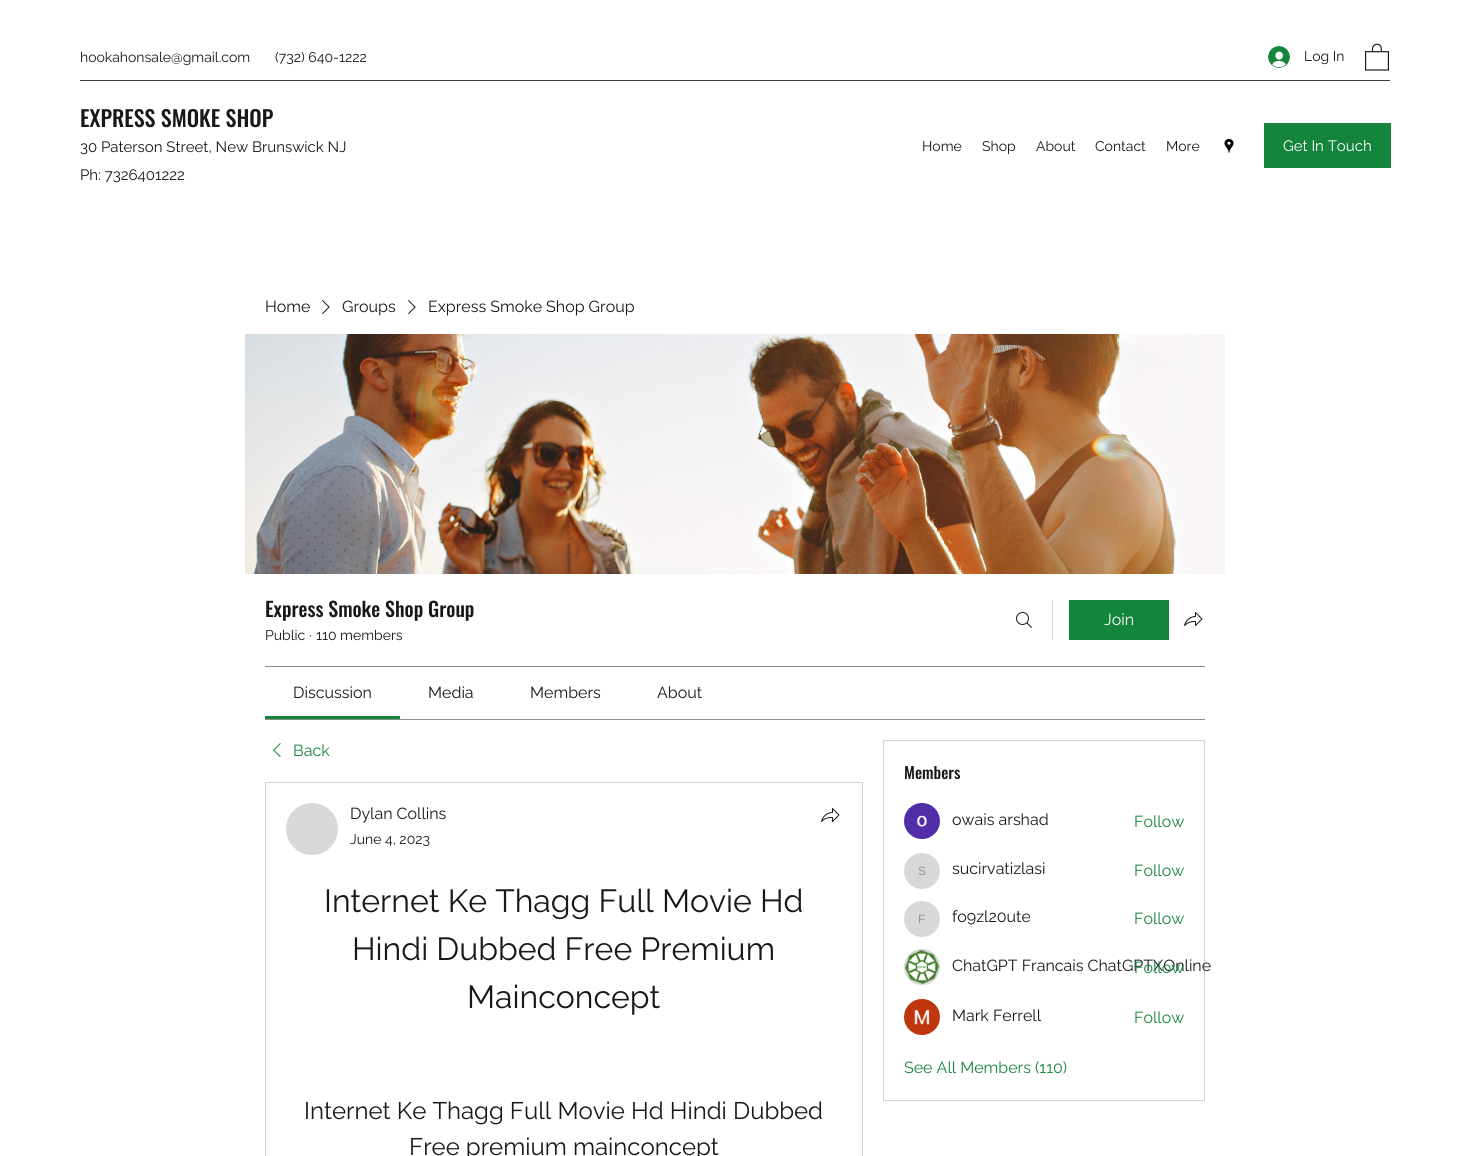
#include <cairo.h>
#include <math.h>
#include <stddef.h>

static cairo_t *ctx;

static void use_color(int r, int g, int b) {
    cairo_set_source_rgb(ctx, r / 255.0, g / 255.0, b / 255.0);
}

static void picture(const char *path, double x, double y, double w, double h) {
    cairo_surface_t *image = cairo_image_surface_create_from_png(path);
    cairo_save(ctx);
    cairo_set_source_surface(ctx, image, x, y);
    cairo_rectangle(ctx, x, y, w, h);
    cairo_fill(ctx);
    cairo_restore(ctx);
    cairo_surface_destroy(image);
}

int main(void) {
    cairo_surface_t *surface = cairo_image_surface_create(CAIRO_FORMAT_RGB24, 1470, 1156);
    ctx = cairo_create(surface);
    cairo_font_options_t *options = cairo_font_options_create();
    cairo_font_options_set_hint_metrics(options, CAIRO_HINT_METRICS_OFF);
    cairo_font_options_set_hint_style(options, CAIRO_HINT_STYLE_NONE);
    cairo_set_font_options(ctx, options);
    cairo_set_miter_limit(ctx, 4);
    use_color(255, 255, 255);
    cairo_paint(ctx);
    cairo_select_font_face(ctx, "Raleway", CAIRO_FONT_SLANT_NORMAL, CAIRO_FONT_WEIGHT_NORMAL);
    cairo_set_font_size(ctx, 14);
    use_color(24, 24, 24);
    cairo_move_to(ctx, 80, 62);
    cairo_show_text(ctx, "hookahonsale@gmail.com");
    cairo_move_to(ctx, 275, 62);
    cairo_show_text(ctx, "(732) 640-1222");
    picture("img1.png", 1268, 46, 22, 22);
    cairo_move_to(ctx, 1304, 61);
    cairo_show_text(ctx, "Log In");
    picture("img2.png", 1365, 43, 24, 28);
    use_color(59, 59, 59);
    cairo_rectangle(ctx, 80, 80, 1310, 1);
    cairo_fill(ctx);
    cairo_select_font_face(ctx, "Oswald Medium", CAIRO_FONT_SLANT_NORMAL, CAIRO_FONT_WEIGHT_NORMAL);
    cairo_set_font_size(ctx, 22);
    use_color(24, 24, 24);
    cairo_move_to(ctx, 80, 127);
    cairo_show_text(ctx, "EXPRESS SMOKE SHOP");
    cairo_select_font_face(ctx, "Raleway", CAIRO_FONT_SLANT_NORMAL, CAIRO_FONT_WEIGHT_NORMAL);
    cairo_set_font_size(ctx, 15);
    cairo_move_to(ctx, 80, 152);
    cairo_show_text(ctx, "30 Paterson Street, New Brunswick NJ");
    cairo_move_to(ctx, 80, 180);
    cairo_show_text(ctx, "Ph: 7326401222");
    cairo_set_font_size(ctx, 14);
    cairo_move_to(ctx, 922, 151);
    cairo_show_text(ctx, "Home");
    cairo_move_to(ctx, 982, 151);
    cairo_show_text(ctx, "Shop");
    cairo_move_to(ctx, 1036, 151);
    cairo_show_text(ctx, "About");
    cairo_move_to(ctx, 1095, 151);
    cairo_show_text(ctx, "Contact");
    cairo_move_to(ctx, 1166, 151);
    cairo_show_text(ctx, "More");
    picture("img3.png", 1224, 138, 10, 15);
    use_color(21, 132, 60);
    cairo_rectangle(ctx, 1264, 123, 127, 45);
    cairo_fill(ctx);
    cairo_set_font_size(ctx, 15);
    use_color(255, 255, 255);
    cairo_move_to(ctx, 1283, 151);
    cairo_show_text(ctx, "Get In Touch");
    cairo_set_font_size(ctx, 16);
    use_color(24, 24, 24);
    cairo_move_to(ctx, 265, 312);
    cairo_show_text(ctx, "Home");
    picture("img4.png", 322, 300, 8, 14);
    cairo_move_to(ctx, 342, 312);
    cairo_show_text(ctx, "Groups");
    picture("img4.png", 408, 300, 8, 14);
    cairo_move_to(ctx, 428, 312);
    cairo_show_text(ctx, "Express Smoke Shop Group");
    picture("img5.png", 245, 334, 980, 240);
    cairo_select_font_face(ctx, "Oswald Medium", CAIRO_FONT_SLANT_NORMAL, CAIRO_FONT_WEIGHT_NORMAL);
    cairo_set_font_size(ctx, 20);
    cairo_move_to(ctx, 265, 617);
    cairo_show_text(ctx, "Express Smoke Shop Group");
    cairo_select_font_face(ctx, "Raleway", CAIRO_FONT_SLANT_NORMAL, CAIRO_FONT_WEIGHT_NORMAL);
    cairo_set_font_size(ctx, 14);
    cairo_move_to(ctx, 265, 640);
    cairo_show_text(ctx, "Public");
    cairo_move_to(ctx, 309, 640);
    cairo_show_text(ctx, "·");
    cairo_move_to(ctx, 316, 640);
    cairo_show_text(ctx, "110 members");
    picture("img6.png", 1016, 612, 16, 16);
    use_color(209, 209, 209);
    cairo_rectangle(ctx, 1052, 600, 1, 40);
    cairo_fill(ctx);
    use_color(21, 132, 60);
    cairo_rectangle(ctx, 1069, 600, 100, 40);
    cairo_fill(ctx);
    cairo_set_font_size(ctx, 16);
    use_color(255, 255, 255);
    cairo_move_to(ctx, 1104, 625);
    cairo_show_text(ctx, "Join");
    picture("img7.png", 1184, 612, 19, 14);
    use_color(140, 140, 140);
    cairo_rectangle(ctx, 265, 666, 940, 1);
    cairo_fill(ctx);
    cairo_rectangle(ctx, 265, 719, 940, 1);
    cairo_fill(ctx);
    use_color(21, 132, 60);
    cairo_rectangle(ctx, 265, 716, 135, 3);
    cairo_fill(ctx);
    use_color(24, 24, 24);
    cairo_move_to(ctx, 293, 698);
    cairo_show_text(ctx, "Discussion");
    cairo_move_to(ctx, 428, 698);
    cairo_show_text(ctx, "Media");
    cairo_move_to(ctx, 530, 698);
    cairo_show_text(ctx, "Members");
    cairo_move_to(ctx, 657, 698);
    cairo_show_text(ctx, "About");
    picture("img8.png", 273, 743, 8, 14);
    use_color(21, 132, 60);
    cairo_move_to(ctx, 293, 756);
    cairo_show_text(ctx, "Back");
    cairo_rectangle(ctx, 265.5, 782.5, 597, 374);
    use_color(209, 209, 209);
    cairo_set_line_width(ctx, 1);
    cairo_stroke(ctx);
    use_color(216, 216, 216);
    cairo_arc(ctx, 312, 829, 26, 0, 2 * M_PI);
    cairo_fill(ctx);
    use_color(24, 24, 24);
    cairo_move_to(ctx, 350, 819);
    cairo_show_text(ctx, "Dylan Collins");
    cairo_set_font_size(ctx, 14);
    cairo_move_to(ctx, 350, 844);
    cairo_show_text(ctx, "June 4, 2023");
    picture("img7.png", 821, 808, 19, 14);
    cairo_set_font_size(ctx, 32);
    cairo_move_to(ctx, 324, 912);
    cairo_show_text(ctx, "Internet Ke Thagg Full Movie Hd");
    cairo_move_to(ctx, 352, 960);
    cairo_show_text(ctx, "Hindi Dubbed Free Premium");
    cairo_move_to(ctx, 467, 1008);
    cairo_show_text(ctx, "Mainconcept");
    cairo_set_font_size(ctx, 24);
    cairo_move_to(ctx, 304, 1119);
    cairo_show_text(ctx, "Internet Ke Thagg Full Movie Hd Hindi Dubbed");
    cairo_move_to(ctx, 409, 1155);
    cairo_show_text(ctx, "Free premium mainconcept");
    cairo_rectangle(ctx, 883.5, 740.5, 321, 360);
    use_color(209, 209, 209);
    cairo_stroke(ctx);
    cairo_select_font_face(ctx, "Oswald Medium", CAIRO_FONT_SLANT_NORMAL, CAIRO_FONT_WEIGHT_NORMAL);
    cairo_set_font_size(ctx, 16);
    use_color(24, 24, 24);
    cairo_move_to(ctx, 904, 779);
    cairo_show_text(ctx, "Members");
    picture("img9.png", 904, 803, 36, 36);
    cairo_select_font_face(ctx, "Raleway", CAIRO_FONT_SLANT_NORMAL, CAIRO_FONT_WEIGHT_NORMAL);
    cairo_move_to(ctx, 952, 825);
    cairo_show_text(ctx, "owais arshad");
    use_color(21, 132, 60);
    cairo_move_to(ctx, 1134, 827);
    cairo_show_text(ctx, "Follow");
    use_color(216, 216, 216);
    cairo_new_path(ctx);
    cairo_arc(ctx, 922, 871, 18, 0, 2 * M_PI);
    cairo_fill(ctx);
    cairo_select_font_face(ctx, "Liberation Sans", CAIRO_FONT_SLANT_NORMAL, CAIRO_FONT_WEIGHT_NORMAL);
    cairo_set_font_size(ctx, 12);
    use_color(151, 151, 151);
    cairo_move_to(ctx, 918, 875);
    cairo_show_text(ctx, "S");
    cairo_select_font_face(ctx, "Raleway", CAIRO_FONT_SLANT_NORMAL, CAIRO_FONT_WEIGHT_NORMAL);
    cairo_set_font_size(ctx, 16);
    use_color(24, 24, 24);
    cairo_move_to(ctx, 952, 874);
    cairo_show_text(ctx, "sucirvatizlasi");
    use_color(21, 132, 60);
    cairo_move_to(ctx, 1134, 876);
    cairo_show_text(ctx, "Follow");
    use_color(216, 216, 216);
    cairo_new_path(ctx);
    cairo_arc(ctx, 922, 919, 18, 0, 2 * M_PI);
    cairo_fill(ctx);
    cairo_select_font_face(ctx, "Liberation Sans", CAIRO_FONT_SLANT_NORMAL, CAIRO_FONT_WEIGHT_NORMAL);
    cairo_set_font_size(ctx, 12);
    use_color(151, 151, 151);
    cairo_move_to(ctx, 918, 923);
    cairo_show_text(ctx, "F");
    cairo_select_font_face(ctx, "Raleway", CAIRO_FONT_SLANT_NORMAL, CAIRO_FONT_WEIGHT_NORMAL);
    cairo_set_font_size(ctx, 16);
    use_color(24, 24, 24);
    cairo_move_to(ctx, 952, 922);
    cairo_show_text(ctx, "fo9zl20ute");
    use_color(21, 132, 60);
    cairo_move_to(ctx, 1134, 924);
    cairo_show_text(ctx, "Follow");
    use_color(216, 216, 216);
    cairo_new_path(ctx);
    cairo_arc(ctx, 922, 967, 18, 0, 2 * M_PI);
    cairo_fill(ctx);
    picture("img10.png", 904, 949, 36, 36);
    use_color(24, 24, 24);
    cairo_move_to(ctx, 952, 971);
    cairo_show_text(ctx, "ChatGPT Francais ChatGPTXOnline");
    use_color(21, 132, 60);
    cairo_move_to(ctx, 1134, 973);
    cairo_show_text(ctx, "Follow");
    picture("img11.png", 904, 999, 36, 36);
    use_color(24, 24, 24);
    cairo_move_to(ctx, 952, 1021);
    cairo_show_text(ctx, "Mark Ferrell");
    use_color(21, 132, 60);
    cairo_move_to(ctx, 1134, 1023);
    cairo_show_text(ctx, "Follow");
    cairo_move_to(ctx, 904, 1073);
    cairo_show_text(ctx, "See All Members (110)");
    cairo_surface_write_to_png(surface, "result.png");
    cairo_font_options_destroy(options);
    cairo_destroy(ctx);
    cairo_surface_destroy(surface);
    return 0;
}
